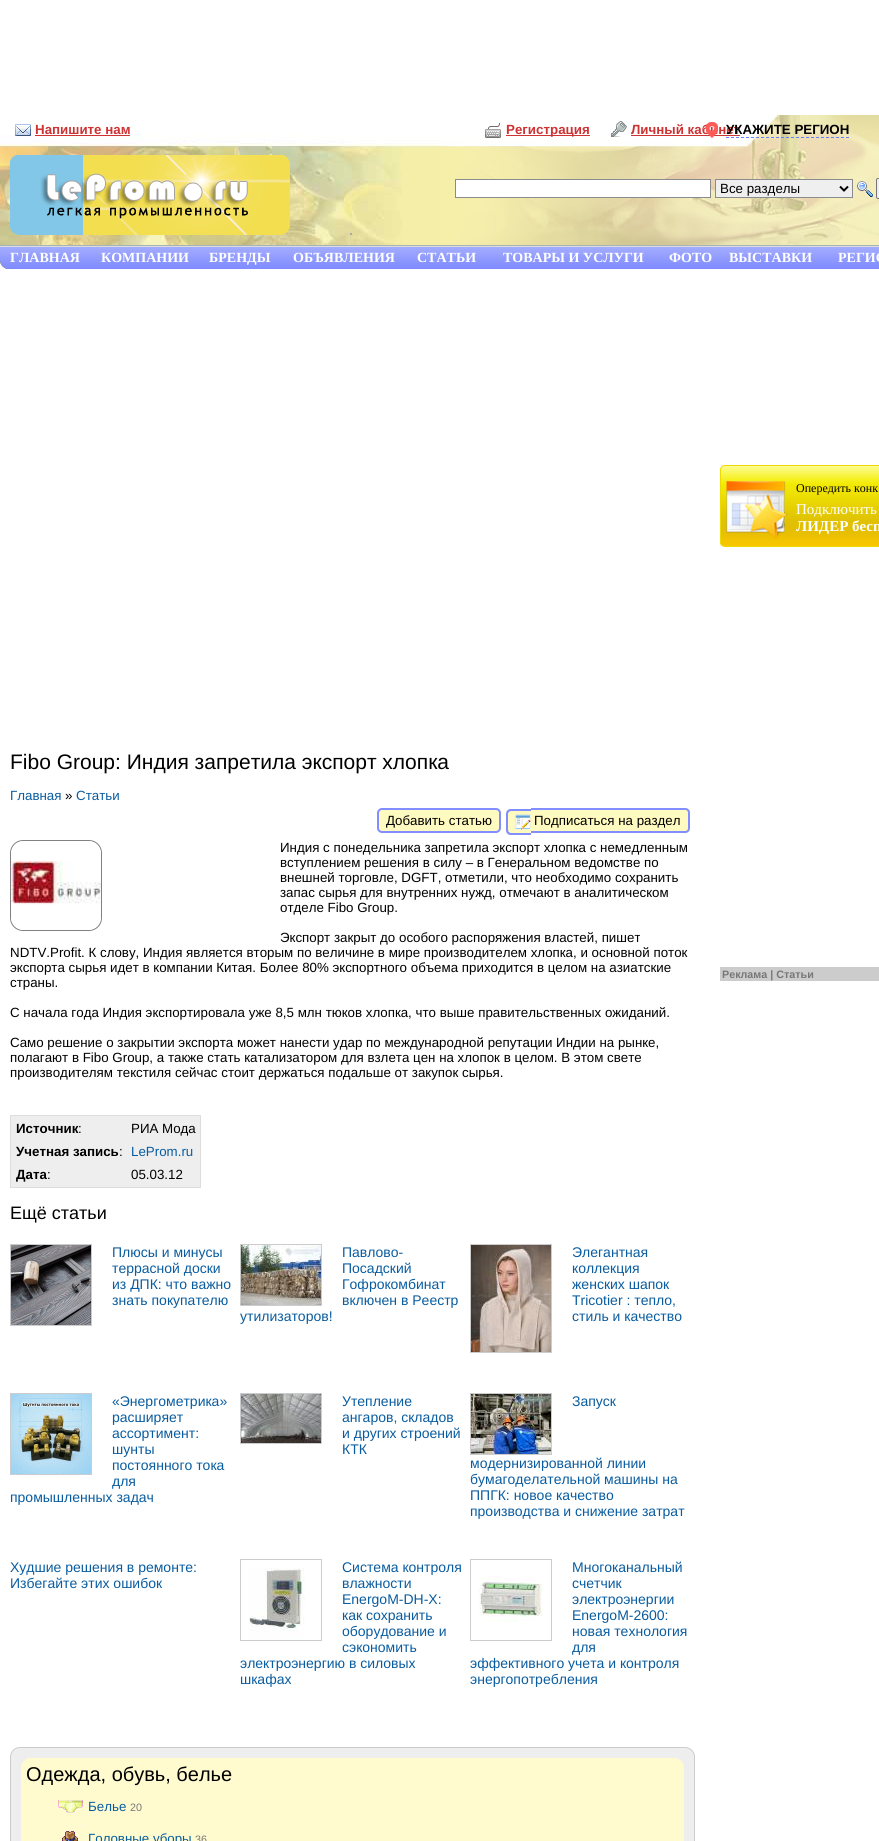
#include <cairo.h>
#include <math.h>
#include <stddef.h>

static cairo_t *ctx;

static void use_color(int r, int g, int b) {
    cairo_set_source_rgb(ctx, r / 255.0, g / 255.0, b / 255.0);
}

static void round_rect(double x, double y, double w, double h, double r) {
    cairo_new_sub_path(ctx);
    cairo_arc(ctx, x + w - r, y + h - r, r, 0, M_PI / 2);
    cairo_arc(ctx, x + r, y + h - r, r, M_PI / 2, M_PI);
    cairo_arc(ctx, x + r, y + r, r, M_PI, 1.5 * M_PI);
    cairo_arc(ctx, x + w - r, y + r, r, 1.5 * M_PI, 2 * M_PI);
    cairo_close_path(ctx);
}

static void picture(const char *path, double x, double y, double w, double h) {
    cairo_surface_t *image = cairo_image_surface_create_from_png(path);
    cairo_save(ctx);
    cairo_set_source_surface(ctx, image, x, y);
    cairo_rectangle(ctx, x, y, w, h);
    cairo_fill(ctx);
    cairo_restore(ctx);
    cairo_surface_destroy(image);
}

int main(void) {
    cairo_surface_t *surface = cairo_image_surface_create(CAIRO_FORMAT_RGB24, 879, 1841);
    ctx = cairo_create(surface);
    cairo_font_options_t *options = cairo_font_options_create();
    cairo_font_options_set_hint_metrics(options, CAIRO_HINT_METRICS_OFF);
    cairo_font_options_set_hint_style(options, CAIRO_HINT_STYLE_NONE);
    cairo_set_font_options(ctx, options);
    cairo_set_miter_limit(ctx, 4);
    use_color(255, 255, 255);
    cairo_paint(ctx);
    picture("img1.png", 402, 138, 38, 107);
    use_color(163, 181, 185);
    cairo_rectangle(ctx, 0, 245, 879, 1);
    cairo_fill(ctx);
    picture("img2.png", 0, 135, 402, 110);
    picture("img3.png", 440, 115, 439, 130);
    picture("img4.png", 15, 124, 16, 12);
    cairo_select_font_face(ctx, "Liberation Sans", CAIRO_FONT_SLANT_NORMAL, CAIRO_FONT_WEIGHT_BOLD);
    cairo_set_font_size(ctx, 13.33);
    use_color(204, 51, 51);
    cairo_move_to(ctx, 35, 134);
    cairo_show_text(ctx, "Напишите нам");
    cairo_rectangle(ctx, 35, 135, 95, 1);
    cairo_fill(ctx);
    picture("img5.png", 485, 123, 16, 15);
    cairo_rectangle(ctx, 506, 135, 84, 1);
    cairo_fill(ctx);
    cairo_move_to(ctx, 506, 134);
    cairo_show_text(ctx, "Регистрация");
    picture("img6.png", 611, 121, 16, 16);
    cairo_move_to(ctx, 631, 134);
    cairo_show_text(ctx, "Личный кабинет");
    cairo_rectangle(ctx, 631, 135, 109, 1);
    cairo_fill(ctx);
    picture("img7.png", 10, 155, 280, 80);
    use_color(255, 255, 255);
    cairo_rectangle(ctx, 455.5, 179.5, 255, 18);
    cairo_fill_preserve(ctx);
    use_color(137, 139, 140);
    cairo_set_line_width(ctx, 1);
    cairo_stroke(ctx);
    use_color(239, 239, 239);
    cairo_rectangle(ctx, 715.5, 179.5, 137, 18);
    cairo_fill_preserve(ctx);
    use_color(137, 139, 140);
    cairo_stroke(ctx);
    cairo_new_path(ctx);
    cairo_move_to(ctx, 840, 186.5);
    cairo_line_to(ctx, 844, 190.5);
    cairo_line_to(ctx, 848, 186.5);
    use_color(0, 0, 0);
    cairo_set_line_width(ctx, 2);
    cairo_stroke(ctx);
    cairo_select_font_face(ctx, "Liberation Sans", CAIRO_FONT_SLANT_NORMAL, CAIRO_FONT_WEIGHT_NORMAL);
    cairo_move_to(ctx, 720, 193);
    cairo_show_text(ctx, "Все разделы");
    picture("img8.png", 857, 181, 16, 16);
    use_color(239, 239, 239);
    round_rect(876.5, 178.5, 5, 20, 1.5);
    cairo_fill_preserve(ctx);
    use_color(118, 118, 118);
    cairo_set_line_width(ctx, 1);
    cairo_stroke(ctx);
    use_color(170, 170, 170);
    cairo_rectangle(ctx, 350, 233, 2, 2);
    cairo_fill(ctx);
    picture("img9.png", 706, 122, 12, 16);
    cairo_select_font_face(ctx, "Liberation Sans", CAIRO_FONT_SLANT_NORMAL, CAIRO_FONT_WEIGHT_BOLD);
    use_color(0, 0, 0);
    cairo_move_to(ctx, 726, 134);
    cairo_show_text(ctx, "УКАЖИТЕ РЕГИОН");
    cairo_new_path(ctx);
    cairo_move_to(ctx, 726, 137.5);
    cairo_line_to(ctx, 849, 137.5);
    use_color(103, 128, 255);
    cairo_set_dash(ctx, (double[]){3, 2}, 2, 0);
    cairo_stroke(ctx);
    picture("img10.png", 0, 247, 879, 22);
    use_color(221, 221, 221);
    cairo_rectangle(ctx, 0, 246, 879, 1);
    cairo_fill(ctx);
    picture("img11.png", 0, 260, 7, 9);
    cairo_select_font_face(ctx, "Liberation Serif", CAIRO_FONT_SLANT_NORMAL, CAIRO_FONT_WEIGHT_BOLD);
    cairo_set_font_size(ctx, 14);
    use_color(255, 255, 255);
    cairo_move_to(ctx, 10, 262);
    cairo_show_text(ctx, "ГЛАВНАЯ");
    cairo_move_to(ctx, 101, 262);
    cairo_show_text(ctx, "КОМПАНИИ");
    cairo_move_to(ctx, 209, 262);
    cairo_show_text(ctx, "БРЕНДЫ");
    cairo_move_to(ctx, 293, 262);
    cairo_show_text(ctx, "ОБЪЯВЛЕНИЯ");
    cairo_move_to(ctx, 417, 262);
    cairo_show_text(ctx, "СТАТЬИ");
    cairo_move_to(ctx, 503, 262);
    cairo_show_text(ctx, "ТОВАРЫ И УСЛУГИ");
    cairo_move_to(ctx, 669, 262);
    cairo_show_text(ctx, "ФОТО");
    cairo_move_to(ctx, 729, 262);
    cairo_show_text(ctx, "ВЫСТАВКИ");
    cairo_move_to(ctx, 838, 262);
    cairo_show_text(ctx, "РЕГИС");
    cairo_select_font_face(ctx, "Liberation Sans", CAIRO_FONT_SLANT_NORMAL, CAIRO_FONT_WEIGHT_NORMAL);
    cairo_set_font_size(ctx, 21);
    use_color(0, 0, 0);
    cairo_move_to(ctx, 10, 769);
    cairo_show_text(ctx, "Fibo Group: Индия запретила экспорт хлопка");
    cairo_set_font_size(ctx, 13.33);
    use_color(9, 92, 159);
    cairo_move_to(ctx, 10, 800);
    cairo_show_text(ctx, "Главная");
    use_color(0, 0, 0);
    cairo_move_to(ctx, 65, 800);
    cairo_show_text(ctx, "»");
    use_color(9, 92, 159);
    cairo_move_to(ctx, 76, 800);
    cairo_show_text(ctx, "Статьи");
    use_color(255, 250, 191);
    round_rect(378, 809, 122, 23, 4);
    cairo_fill_preserve(ctx);
    use_color(130, 141, 255);
    cairo_set_line_width(ctx, 2);
    cairo_set_dash(ctx, NULL, 0, 0);
    cairo_stroke(ctx);
    use_color(0, 0, 0);
    cairo_move_to(ctx, 386, 825);
    cairo_show_text(ctx, "Добавить статью");
    use_color(255, 250, 191);
    cairo_new_path(ctx);
    cairo_move_to(ctx, 511, 809);
    cairo_line_to(ctx, 531, 809);
    cairo_line_to(ctx, 531, 835);
    cairo_line_to(ctx, 511, 835);
    cairo_curve_to(ctx, 508, 835, 506, 833, 506, 830);
    cairo_line_to(ctx, 506, 814);
    cairo_curve_to(ctx, 506, 811, 508, 809, 511, 809);
    cairo_close_path(ctx);
    cairo_fill(ctx);
    use_color(130, 141, 255);
    cairo_set_fill_rule(ctx, CAIRO_FILL_RULE_EVEN_ODD);
    cairo_new_path(ctx);
    cairo_move_to(ctx, 511, 809);
    cairo_line_to(ctx, 531, 809);
    cairo_line_to(ctx, 531, 835);
    cairo_line_to(ctx, 511, 835);
    cairo_curve_to(ctx, 508, 835, 506, 833, 506, 830);
    cairo_line_to(ctx, 506, 814);
    cairo_curve_to(ctx, 506, 811, 508, 809, 511, 809);
    cairo_close_path(ctx);
    cairo_move_to(ctx, 511, 811);
    cairo_line_to(ctx, 531, 811);
    cairo_line_to(ctx, 531, 833);
    cairo_line_to(ctx, 511, 833);
    cairo_curve_to(ctx, 509.5, 833, 508, 831.5, 508, 830);
    cairo_line_to(ctx, 508, 814);
    cairo_curve_to(ctx, 508, 812.5, 509.5, 811, 511, 811);
    cairo_close_path(ctx);
    cairo_fill(ctx);
    picture("img12.png", 515, 814, 16, 16);
    use_color(255, 250, 191);
    cairo_new_path(ctx);
    cairo_move_to(ctx, 531, 808);
    cairo_line_to(ctx, 685, 808);
    cairo_curve_to(ctx, 688, 808, 690, 810, 690, 813);
    cairo_line_to(ctx, 690, 828);
    cairo_curve_to(ctx, 690, 831, 688, 833, 685, 833);
    cairo_line_to(ctx, 531, 833);
    cairo_close_path(ctx);
    cairo_fill(ctx);
    use_color(130, 141, 255);
    cairo_new_path(ctx);
    cairo_move_to(ctx, 531, 808);
    cairo_line_to(ctx, 685, 808);
    cairo_curve_to(ctx, 688, 808, 690, 810, 690, 813);
    cairo_line_to(ctx, 690, 828);
    cairo_curve_to(ctx, 690, 831, 688, 833, 685, 833);
    cairo_line_to(ctx, 531, 833);
    cairo_close_path(ctx);
    cairo_move_to(ctx, 531, 810);
    cairo_line_to(ctx, 685, 810);
    cairo_curve_to(ctx, 687, 810, 688, 811, 688, 813);
    cairo_line_to(ctx, 688, 828);
    cairo_curve_to(ctx, 688, 830, 687, 831, 685, 831);
    cairo_line_to(ctx, 531, 831);
    cairo_close_path(ctx);
    cairo_fill(ctx);
    use_color(0, 0, 0);
    cairo_move_to(ctx, 534, 825);
    cairo_show_text(ctx, "Подписаться на раздел");
    round_rect(10.5, 840.5, 91, 90, 12.5);
    use_color(128, 128, 128);
    cairo_set_line_width(ctx, 1);
    cairo_stroke(ctx);
    picture("img13.png", 11, 841, 90, 89);
    use_color(0, 0, 0);
    cairo_move_to(ctx, 280, 852);
    cairo_show_text(ctx, "Индия с понедельника запретила экспорт хлопка с немедленным");
    cairo_move_to(ctx, 280, 867);
    cairo_show_text(ctx, "вступлением решения в силу – в Генеральном ведомстве по");
    cairo_move_to(ctx, 280, 882);
    cairo_show_text(ctx, "внешней торговле, DGFT, отметили, что необходимо сохранить");
    cairo_move_to(ctx, 280, 897);
    cairo_show_text(ctx, "запас сырья для внутренних нужд, отмечают в аналитическом");
    cairo_move_to(ctx, 280, 912);
    cairo_show_text(ctx, "отделе Fibo Group.");
    cairo_move_to(ctx, 280, 942);
    cairo_show_text(ctx, "Экспорт закрыт до особого распоряжения властей, пишет");
    cairo_move_to(ctx, 10, 957);
    cairo_show_text(ctx, "NDTV.Profit. К слову, Индия является вторым по величине в мире производителем хлопка, и основной поток");
    cairo_move_to(ctx, 10, 972);
    cairo_show_text(ctx, "экспорта сырья идет в компании Китая. Более 80% экспортного объема приходится в целом на азиатские");
    cairo_move_to(ctx, 10, 987);
    cairo_show_text(ctx, "страны.");
    cairo_move_to(ctx, 10, 1017);
    cairo_show_text(ctx, "С начала года Индия экспортировала уже 8,5 млн тюков хлопка, что выше правительственных ожиданий.");
    cairo_move_to(ctx, 10, 1047);
    cairo_show_text(ctx, "Само решение о закрытии экспорта может нанести удар по международной репутации Индии на рынке,");
    cairo_move_to(ctx, 10, 1062);
    cairo_show_text(ctx, "полагают в Fibo Group, а также стать катализатором для взлета цен на хлопок в целом. В этом свете");
    cairo_move_to(ctx, 10, 1077);
    cairo_show_text(ctx, "производителям текстиля сейчас стоит держаться подальше от закупок сырья.");
    use_color(238, 238, 238);
    cairo_rectangle(ctx, 10.5, 1115.5, 190, 72);
    cairo_fill_preserve(ctx);
    use_color(221, 221, 221);
    cairo_stroke(ctx);
    cairo_select_font_face(ctx, "Liberation Sans", CAIRO_FONT_SLANT_NORMAL, CAIRO_FONT_WEIGHT_BOLD);
    use_color(0, 0, 0);
    cairo_move_to(ctx, 16, 1133);
    cairo_show_text(ctx, "Источник");
    cairo_select_font_face(ctx, "Liberation Sans", CAIRO_FONT_SLANT_NORMAL, CAIRO_FONT_WEIGHT_NORMAL);
    cairo_move_to(ctx, 78, 1133);
    cairo_show_text(ctx, ":");
    cairo_move_to(ctx, 131, 1133);
    cairo_show_text(ctx, "РИА Мода");
    cairo_select_font_face(ctx, "Liberation Sans", CAIRO_FONT_SLANT_NORMAL, CAIRO_FONT_WEIGHT_BOLD);
    cairo_move_to(ctx, 16, 1156);
    cairo_show_text(ctx, "Учетная запись");
    cairo_select_font_face(ctx, "Liberation Sans", CAIRO_FONT_SLANT_NORMAL, CAIRO_FONT_WEIGHT_NORMAL);
    cairo_move_to(ctx, 119, 1156);
    cairo_show_text(ctx, ":");
    use_color(9, 92, 159);
    cairo_move_to(ctx, 131, 1156);
    cairo_show_text(ctx, "LeProm.ru");
    cairo_select_font_face(ctx, "Liberation Sans", CAIRO_FONT_SLANT_NORMAL, CAIRO_FONT_WEIGHT_BOLD);
    use_color(0, 0, 0);
    cairo_move_to(ctx, 16, 1179);
    cairo_show_text(ctx, "Дата");
    cairo_select_font_face(ctx, "Liberation Sans", CAIRO_FONT_SLANT_NORMAL, CAIRO_FONT_WEIGHT_NORMAL);
    cairo_move_to(ctx, 47, 1179);
    cairo_show_text(ctx, ":");
    cairo_move_to(ctx, 131, 1179);
    cairo_show_text(ctx, "05.03.12");
    cairo_set_font_size(ctx, 18);
    cairo_move_to(ctx, 10, 1219);
    cairo_show_text(ctx, "Ещё статьи");
    cairo_rectangle(ctx, 10.5, 1244.5, 81, 81);
    use_color(204, 204, 204);
    cairo_stroke(ctx);
    picture("img14.png", 11, 1245, 80, 80);
    cairo_set_font_size(ctx, 14);
    use_color(9, 92, 159);
    cairo_move_to(ctx, 112, 1257);
    cairo_show_text(ctx, "Плюсы и минусы");
    cairo_move_to(ctx, 112, 1273);
    cairo_show_text(ctx, "террасной доски");
    cairo_move_to(ctx, 112, 1289);
    cairo_show_text(ctx, "из ДПК: что важно");
    cairo_move_to(ctx, 112, 1305);
    cairo_show_text(ctx, "знать покупателю");
    cairo_rectangle(ctx, 240.5, 1244.5, 81, 61);
    use_color(204, 204, 204);
    cairo_stroke(ctx);
    picture("img15.png", 241, 1245, 80, 60);
    use_color(9, 92, 159);
    cairo_move_to(ctx, 342, 1257);
    cairo_show_text(ctx, "Павлово-");
    cairo_move_to(ctx, 342, 1273);
    cairo_show_text(ctx, "Посадский");
    cairo_move_to(ctx, 342, 1289);
    cairo_show_text(ctx, "Гофрокомбинат");
    cairo_move_to(ctx, 342, 1305);
    cairo_show_text(ctx, "включен в Реестр");
    cairo_move_to(ctx, 240, 1321);
    cairo_show_text(ctx, "утилизаторов!");
    cairo_rectangle(ctx, 470.5, 1244.5, 81, 108);
    use_color(204, 204, 204);
    cairo_stroke(ctx);
    picture("img16.png", 471, 1245, 80, 107);
    use_color(9, 92, 159);
    cairo_move_to(ctx, 572, 1257);
    cairo_show_text(ctx, "Элегантная");
    cairo_move_to(ctx, 572, 1273);
    cairo_show_text(ctx, "коллекция");
    cairo_move_to(ctx, 572, 1289);
    cairo_show_text(ctx, "женских шапок");
    cairo_move_to(ctx, 572, 1305);
    cairo_show_text(ctx, "Tricotier : тепло,");
    cairo_move_to(ctx, 572, 1321);
    cairo_show_text(ctx, "стиль и качество");
    cairo_rectangle(ctx, 10.5, 1393.5, 81, 81);
    use_color(204, 204, 204);
    cairo_stroke(ctx);
    picture("img17.png", 11, 1394, 80, 80);
    use_color(9, 92, 159);
    cairo_move_to(ctx, 112, 1406);
    cairo_show_text(ctx, "«Энергометрика»");
    cairo_move_to(ctx, 112, 1422);
    cairo_show_text(ctx, "расширяет");
    cairo_move_to(ctx, 112, 1438);
    cairo_show_text(ctx, "ассортимент:");
    cairo_move_to(ctx, 112, 1454);
    cairo_show_text(ctx, "шунты");
    cairo_move_to(ctx, 112, 1470);
    cairo_show_text(ctx, "постоянного тока");
    cairo_move_to(ctx, 112, 1486);
    cairo_show_text(ctx, "для");
    cairo_move_to(ctx, 10, 1502);
    cairo_show_text(ctx, "промышленных задач");
    cairo_rectangle(ctx, 240.5, 1393.5, 81, 50);
    use_color(204, 204, 204);
    cairo_stroke(ctx);
    picture("img18.png", 241, 1394, 80, 49);
    use_color(9, 92, 159);
    cairo_move_to(ctx, 342, 1406);
    cairo_show_text(ctx, "Утепление");
    cairo_move_to(ctx, 342, 1422);
    cairo_show_text(ctx, "ангаров, складов");
    cairo_move_to(ctx, 342, 1438);
    cairo_show_text(ctx, "и других строений");
    cairo_move_to(ctx, 342, 1454);
    cairo_show_text(ctx, "КТК");
    cairo_rectangle(ctx, 470.5, 1393.5, 81, 61);
    use_color(204, 204, 204);
    cairo_stroke(ctx);
    picture("img19.png", 471, 1394, 80, 60);
    use_color(9, 92, 159);
    cairo_move_to(ctx, 572, 1406);
    cairo_show_text(ctx, "Запуск");
    cairo_move_to(ctx, 470, 1468);
    cairo_show_text(ctx, "модернизированной линии");
    cairo_move_to(ctx, 470, 1484);
    cairo_show_text(ctx, "бумагоделательной машины на");
    cairo_move_to(ctx, 470, 1500);
    cairo_show_text(ctx, "ППГК: новое качество");
    cairo_move_to(ctx, 470, 1516);
    cairo_show_text(ctx, "производства и снижение затрат");
    cairo_move_to(ctx, 10, 1572);
    cairo_show_text(ctx, "Худшие решения в ремонте:");
    cairo_move_to(ctx, 10, 1588);
    cairo_show_text(ctx, "Избегайте этих ошибок");
    cairo_rectangle(ctx, 240.5, 1559.5, 81, 81);
    use_color(204, 204, 204);
    cairo_stroke(ctx);
    picture("img20.png", 249, 1568, 56, 72);
    use_color(9, 92, 159);
    cairo_move_to(ctx, 342, 1572);
    cairo_show_text(ctx, "Система контроля");
    cairo_move_to(ctx, 342, 1588);
    cairo_show_text(ctx, "влажности");
    cairo_move_to(ctx, 342, 1604);
    cairo_show_text(ctx, "EnergoM-DH-X:");
    cairo_move_to(ctx, 342, 1620);
    cairo_show_text(ctx, "как сохранить");
    cairo_move_to(ctx, 342, 1636);
    cairo_show_text(ctx, "оборудование и");
    cairo_move_to(ctx, 342, 1652);
    cairo_show_text(ctx, "сэкономить");
    cairo_move_to(ctx, 240, 1668);
    cairo_show_text(ctx, "электроэнергию в силовых");
    cairo_move_to(ctx, 240, 1684);
    cairo_show_text(ctx, "шкафах");
    cairo_rectangle(ctx, 470.5, 1559.5, 81, 81);
    use_color(204, 204, 204);
    cairo_stroke(ctx);
    picture("img21.png", 479, 1576, 64, 46);
    use_color(9, 92, 159);
    cairo_move_to(ctx, 572, 1572);
    cairo_show_text(ctx, "Многоканальный");
    cairo_move_to(ctx, 572, 1588);
    cairo_show_text(ctx, "счетчик");
    cairo_move_to(ctx, 572, 1604);
    cairo_show_text(ctx, "электроэнергии");
    cairo_move_to(ctx, 572, 1620);
    cairo_show_text(ctx, "EnergoM-2600:");
    cairo_move_to(ctx, 572, 1636);
    cairo_show_text(ctx, "новая технология");
    cairo_move_to(ctx, 572, 1652);
    cairo_show_text(ctx, "для");
    cairo_move_to(ctx, 470, 1668);
    cairo_show_text(ctx, "эффективного учета и контроля");
    cairo_move_to(ctx, 470, 1684);
    cairo_show_text(ctx, "энергопотребления");
    use_color(238, 238, 238);
    round_rect(10.5, 1747.5, 684, 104, 9.5);
    cairo_fill_preserve(ctx);
    use_color(204, 204, 204);
    cairo_stroke(ctx);
    use_color(255, 251, 207);
    round_rect(21, 1758, 663, 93, 10);
    cairo_fill(ctx);
    cairo_set_font_size(ctx, 20);
    use_color(0, 0, 0);
    cairo_move_to(ctx, 26, 1781);
    cairo_show_text(ctx, "Одежда, обувь, белье");
    picture("img22.png", 58, 1800, 25, 13);
    cairo_set_font_size(ctx, 13.33);
    use_color(9, 92, 159);
    cairo_move_to(ctx, 88, 1811);
    cairo_show_text(ctx, "Белье");
    cairo_set_font_size(ctx, 10.75);
    use_color(119, 119, 119);
    cairo_move_to(ctx, 130, 1811);
    cairo_show_text(ctx, "20");
    picture("img23.png", 61, 1825, 22, 16);
    cairo_set_font_size(ctx, 13.33);
    use_color(9, 92, 159);
    cairo_move_to(ctx, 88, 1843);
    cairo_show_text(ctx, "Головные уборы");
    cairo_set_font_size(ctx, 10.75);
    use_color(119, 119, 119);
    cairo_move_to(ctx, 195, 1843);
    cairo_show_text(ctx, "36");
    picture("img24.png", 720, 465, 159, 81);
    round_rect(720.5, 465.5, 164, 81, 4.5);
    use_color(238, 218, 3);
    cairo_stroke(ctx);
    picture("img25.png", 726, 481, 62, 58);
    cairo_select_font_face(ctx, "Liberation Serif", CAIRO_FONT_SLANT_NORMAL, CAIRO_FONT_WEIGHT_NORMAL);
    cairo_set_font_size(ctx, 12);
    use_color(0, 0, 0);
    cairo_move_to(ctx, 796, 492);
    cairo_show_text(ctx, "Опередить конк");
    cairo_set_font_size(ctx, 15);
    use_color(255, 255, 255);
    cairo_move_to(ctx, 796, 514);
    cairo_show_text(ctx, "Подключить");
    cairo_select_font_face(ctx, "Liberation Serif", CAIRO_FONT_SLANT_NORMAL, CAIRO_FONT_WEIGHT_BOLD);
    cairo_move_to(ctx, 796, 531);
    cairo_show_text(ctx, "ЛИДЕР бесп");
    use_color(204, 204, 204);
    cairo_rectangle(ctx, 720, 967, 159, 14);
    cairo_fill(ctx);
    cairo_select_font_face(ctx, "Liberation Sans", CAIRO_FONT_SLANT_NORMAL, CAIRO_FONT_WEIGHT_BOLD);
    cairo_set_font_size(ctx, 10.75);
    use_color(119, 119, 119);
    cairo_move_to(ctx, 722, 978);
    cairo_show_text(ctx, "Реклама | Статьи");
    cairo_surface_write_to_png(surface, "result.png");
    cairo_font_options_destroy(options);
    cairo_destroy(ctx);
    cairo_surface_destroy(surface);
    return 0;
}
